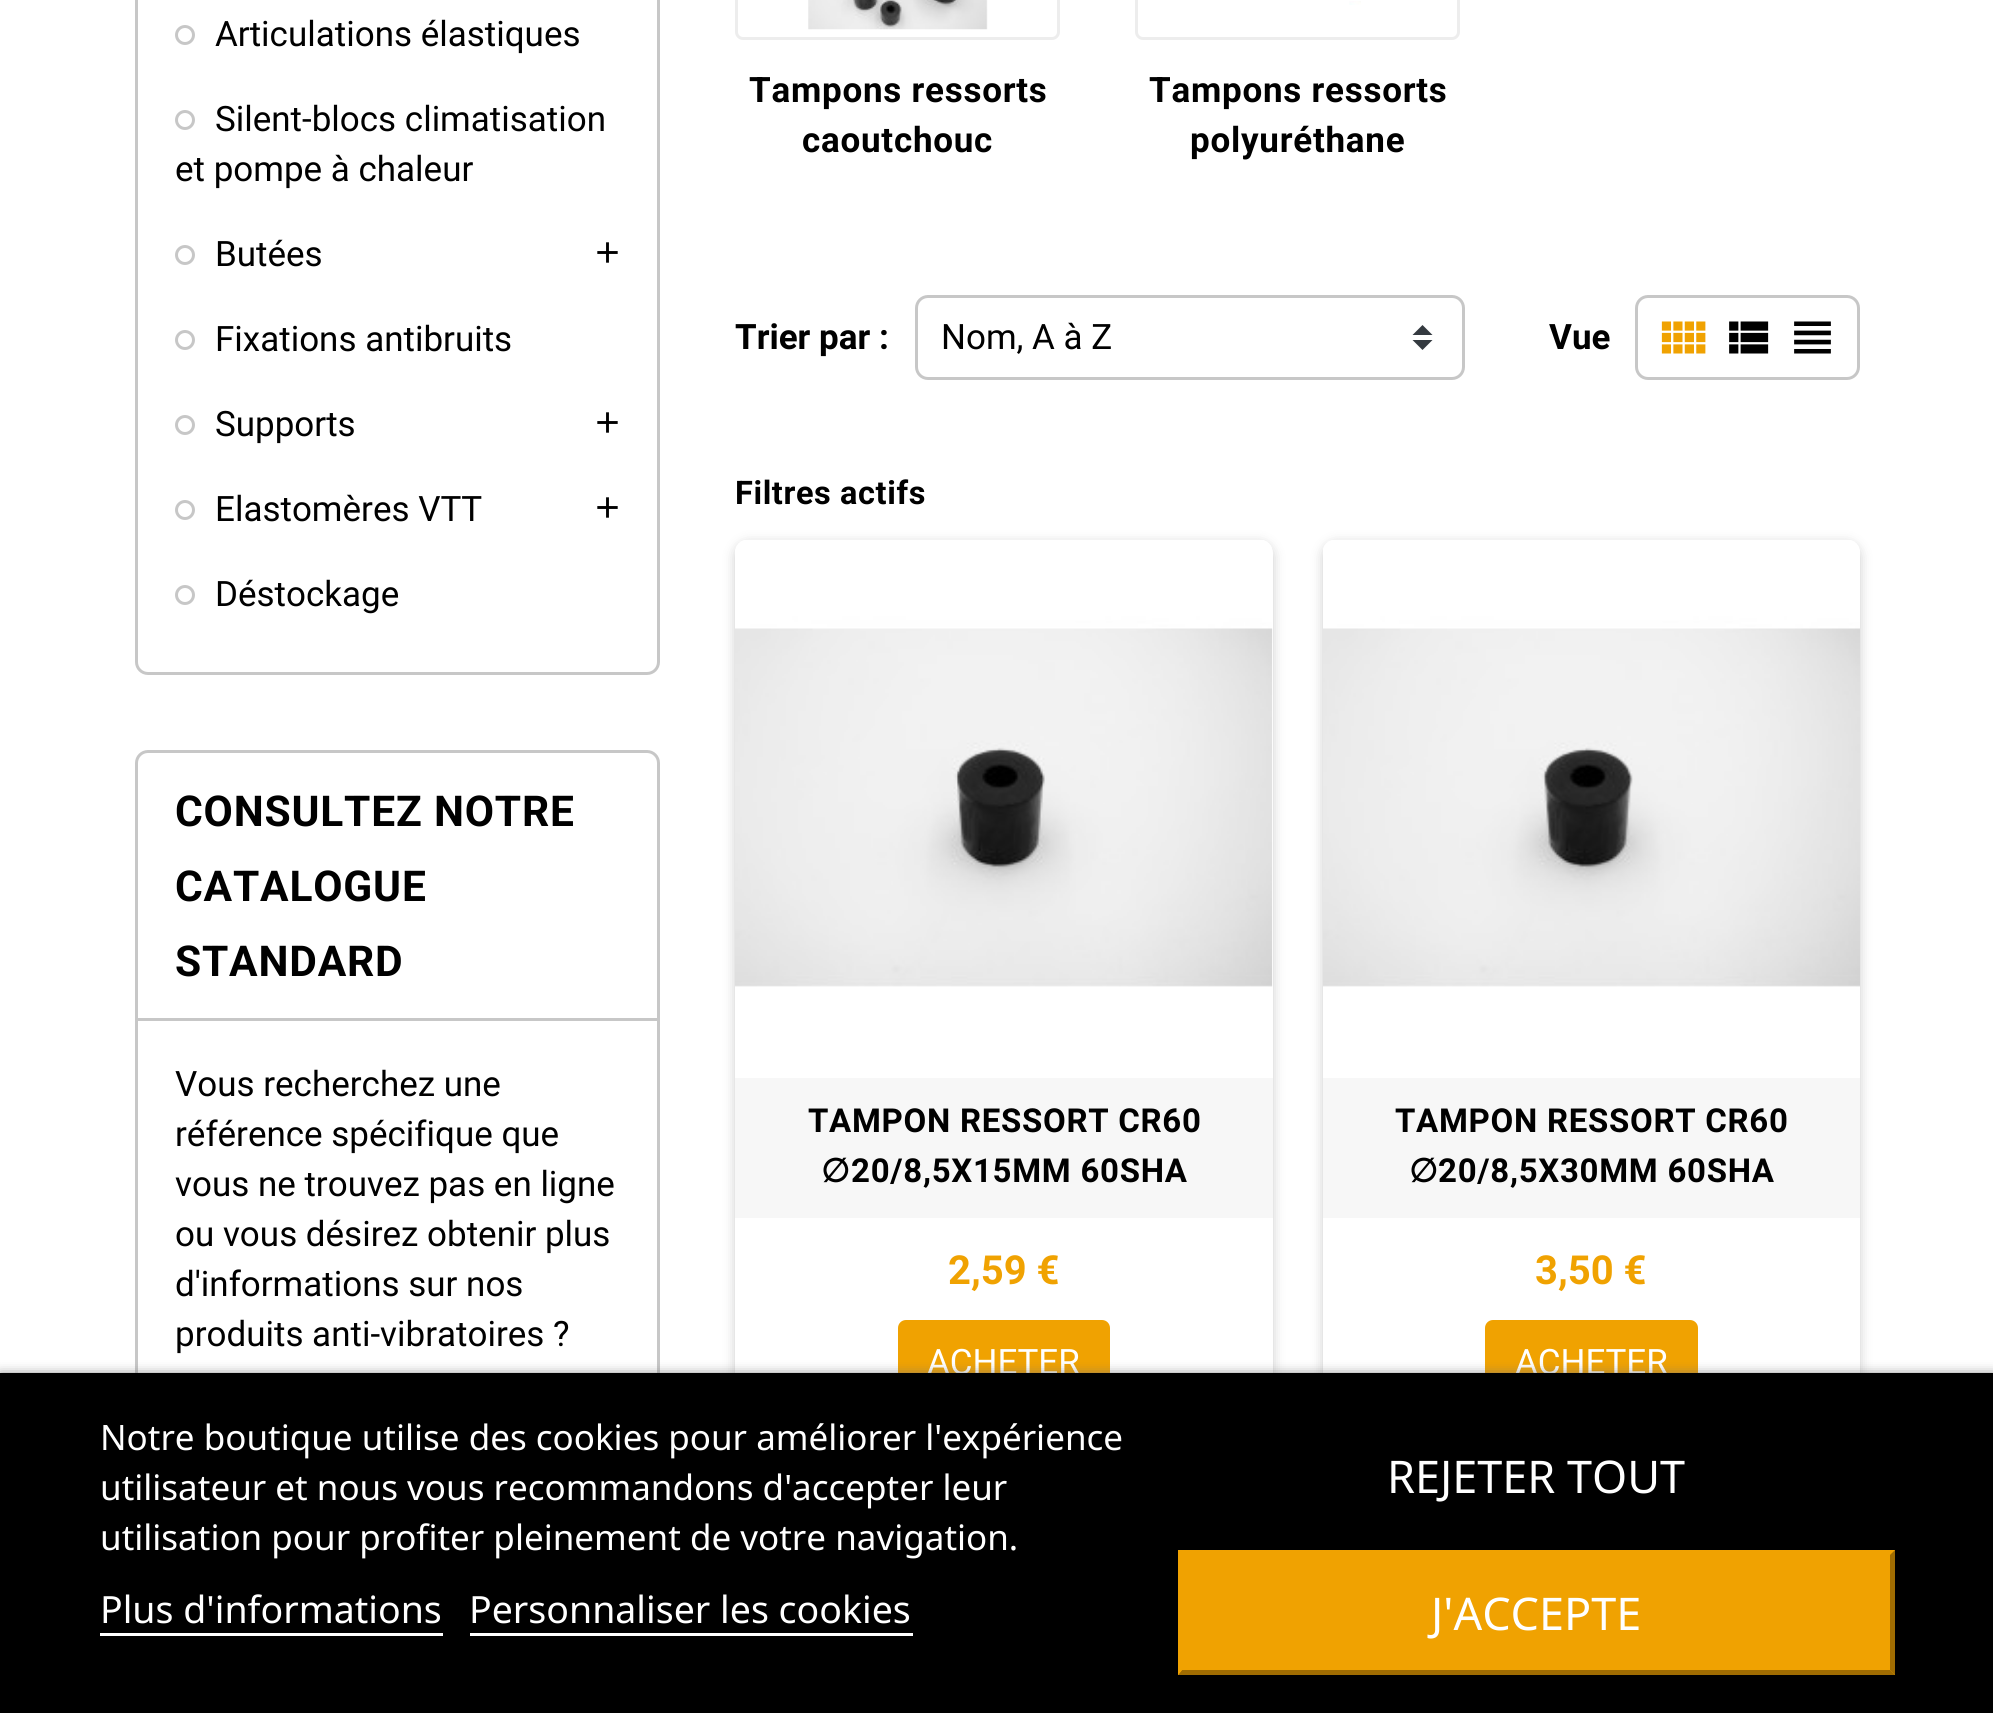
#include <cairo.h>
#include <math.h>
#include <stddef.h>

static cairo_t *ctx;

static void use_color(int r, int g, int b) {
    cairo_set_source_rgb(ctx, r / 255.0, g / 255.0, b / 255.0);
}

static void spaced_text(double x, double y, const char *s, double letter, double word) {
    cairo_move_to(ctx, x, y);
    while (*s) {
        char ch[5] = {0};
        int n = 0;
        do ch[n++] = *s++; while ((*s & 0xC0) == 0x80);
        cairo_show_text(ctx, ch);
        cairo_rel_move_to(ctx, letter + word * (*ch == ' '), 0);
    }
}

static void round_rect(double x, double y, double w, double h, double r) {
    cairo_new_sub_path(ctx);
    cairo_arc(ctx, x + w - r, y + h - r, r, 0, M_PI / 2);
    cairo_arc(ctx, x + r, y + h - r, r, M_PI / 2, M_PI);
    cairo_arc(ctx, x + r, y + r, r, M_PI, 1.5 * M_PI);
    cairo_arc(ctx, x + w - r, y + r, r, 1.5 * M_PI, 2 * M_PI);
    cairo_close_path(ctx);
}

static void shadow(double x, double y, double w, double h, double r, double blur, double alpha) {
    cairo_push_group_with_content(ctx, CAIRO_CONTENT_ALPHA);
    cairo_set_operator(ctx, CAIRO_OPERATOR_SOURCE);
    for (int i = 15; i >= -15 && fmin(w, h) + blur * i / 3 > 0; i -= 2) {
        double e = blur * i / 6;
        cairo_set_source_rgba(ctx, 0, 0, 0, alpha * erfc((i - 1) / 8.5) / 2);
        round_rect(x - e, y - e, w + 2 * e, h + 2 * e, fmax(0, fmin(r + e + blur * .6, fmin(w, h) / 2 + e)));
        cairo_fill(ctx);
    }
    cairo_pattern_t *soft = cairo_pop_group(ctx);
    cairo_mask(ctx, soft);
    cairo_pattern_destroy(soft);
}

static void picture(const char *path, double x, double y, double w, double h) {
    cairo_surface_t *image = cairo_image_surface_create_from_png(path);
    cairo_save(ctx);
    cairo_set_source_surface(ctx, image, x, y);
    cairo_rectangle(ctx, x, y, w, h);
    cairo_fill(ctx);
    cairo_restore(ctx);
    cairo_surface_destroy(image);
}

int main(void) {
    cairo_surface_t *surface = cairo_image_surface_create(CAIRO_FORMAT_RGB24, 1993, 1713);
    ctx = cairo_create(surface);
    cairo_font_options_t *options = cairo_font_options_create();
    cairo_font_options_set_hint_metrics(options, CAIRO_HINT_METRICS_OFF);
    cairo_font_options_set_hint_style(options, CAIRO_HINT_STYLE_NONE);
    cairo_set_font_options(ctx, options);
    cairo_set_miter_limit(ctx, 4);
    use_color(255, 255, 255);
    cairo_paint(ctx);
    round_rect(136.5, -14.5, 522, 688, 11.5);
    use_color(199, 199, 199);
    cairo_set_line_width(ctx, 3);
    cairo_stroke(ctx);
    cairo_arc(ctx, 185, 35, 8.5, 0, 2 * M_PI);
    cairo_stroke(ctx);
    cairo_select_font_face(ctx, "Roboto", CAIRO_FONT_SLANT_NORMAL, CAIRO_FONT_WEIGHT_NORMAL);
    cairo_set_font_size(ctx, 35);
    use_color(0, 0, 0);
    cairo_move_to(ctx, 215, 46);
    cairo_show_text(ctx, "Articulations élastiques");
    cairo_new_path(ctx);
    cairo_arc(ctx, 185, 120, 8.5, 0, 2 * M_PI);
    use_color(199, 199, 199);
    cairo_stroke(ctx);
    use_color(0, 0, 0);
    cairo_move_to(ctx, 215, 131);
    cairo_show_text(ctx, "Silent-blocs climatisation");
    cairo_move_to(ctx, 175, 181);
    cairo_show_text(ctx, "et pompe à chaleur");
    cairo_new_path(ctx);
    cairo_arc(ctx, 185, 255, 8.5, 0, 2 * M_PI);
    use_color(199, 199, 199);
    cairo_stroke(ctx);
    use_color(0, 0, 0);
    cairo_move_to(ctx, 215, 266);
    cairo_show_text(ctx, "Butées");
    picture("img1.png", 597, 242, 21, 21);
    cairo_arc(ctx, 185, 340, 8.5, 0, 2 * M_PI);
    use_color(199, 199, 199);
    cairo_stroke(ctx);
    use_color(0, 0, 0);
    cairo_move_to(ctx, 215, 351);
    cairo_show_text(ctx, "Fixations antibruits");
    cairo_new_path(ctx);
    cairo_arc(ctx, 185, 425, 8.5, 0, 2 * M_PI);
    use_color(199, 199, 199);
    cairo_stroke(ctx);
    use_color(0, 0, 0);
    cairo_move_to(ctx, 215, 436);
    cairo_show_text(ctx, "Supports");
    picture("img1.png", 597, 412, 21, 21);
    cairo_arc(ctx, 185, 510, 8.5, 0, 2 * M_PI);
    use_color(199, 199, 199);
    cairo_stroke(ctx);
    use_color(0, 0, 0);
    cairo_move_to(ctx, 215, 521);
    cairo_show_text(ctx, "Elastomères VTT");
    picture("img1.png", 597, 497, 21, 21);
    cairo_arc(ctx, 185, 595, 8.5, 0, 2 * M_PI);
    use_color(199, 199, 199);
    cairo_stroke(ctx);
    use_color(0, 0, 0);
    cairo_move_to(ctx, 215, 606);
    cairo_show_text(ctx, "Déstockage");
    round_rect(136.5, 751.5, 522, 780, 11.5);
    use_color(199, 199, 199);
    cairo_stroke(ctx);
    cairo_rectangle(ctx, 138, 1018, 520, 3);
    cairo_fill(ctx);
    cairo_select_font_face(ctx, "Roboto", CAIRO_FONT_SLANT_NORMAL, CAIRO_FONT_WEIGHT_BOLD);
    cairo_set_font_size(ctx, 42.5);
    use_color(0, 0, 0);
    spaced_text(175, 826, "CONSULTEZ NOTRE", 0.8, 0);
    spaced_text(175, 901, "CATALOGUE", 0.8, 0);
    spaced_text(175, 976, "STANDARD", 0.8, 0);
    cairo_select_font_face(ctx, "Roboto", CAIRO_FONT_SLANT_NORMAL, CAIRO_FONT_WEIGHT_NORMAL);
    cairo_set_font_size(ctx, 35);
    cairo_move_to(ctx, 175, 1096);
    cairo_show_text(ctx, "Vous recherchez une");
    cairo_move_to(ctx, 175, 1146);
    cairo_show_text(ctx, "référence spécifique que");
    cairo_move_to(ctx, 175, 1196);
    cairo_show_text(ctx, "vous ne trouvez pas en ligne");
    cairo_move_to(ctx, 175, 1246);
    cairo_show_text(ctx, "ou vous désirez obtenir plus");
    cairo_move_to(ctx, 175, 1296);
    cairo_show_text(ctx, "d'informations sur nos");
    cairo_move_to(ctx, 175, 1346);
    cairo_show_text(ctx, "produits anti-vibratoires ?");
    round_rect(736.5, -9.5, 322, 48, 6.5);
    use_color(237, 237, 237);
    cairo_stroke(ctx);
    picture("img2.png", 808, 0, 180, 30);
    cairo_select_font_face(ctx, "Roboto", CAIRO_FONT_SLANT_NORMAL, CAIRO_FONT_WEIGHT_BOLD);
    use_color(0, 0, 0);
    spaced_text(749, 102, "Tampons ressorts", 0.75, 0);
    spaced_text(802, 152, "caoutchouc", 0.75, 0);
    round_rect(1136.5, -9.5, 322, 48, 6.5);
    use_color(237, 237, 237);
    cairo_stroke(ctx);
    picture("img3.png", 1349, 1, 12, 4);
    use_color(0, 0, 0);
    spaced_text(1149, 102, "Tampons ressorts", 0.75, 0);
    spaced_text(1190, 152, "polyuréthane", 0.75, 0);
    cairo_select_font_face(ctx, "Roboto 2", CAIRO_FONT_SLANT_NORMAL, CAIRO_FONT_WEIGHT_BOLD);
    cairo_move_to(ctx, 735, 349);
    cairo_show_text(ctx, "Trier par :");
    use_color(52, 58, 64);
    cairo_new_path(ctx);
    cairo_move_to(ctx, 1422.5, 325);
    cairo_line_to(ctx, 1412.5, 335);
    cairo_line_to(ctx, 1432.5, 335);
    cairo_close_path(ctx);
    cairo_move_to(ctx, 1422.5, 350);
    cairo_line_to(ctx, 1412.5, 340);
    cairo_line_to(ctx, 1432.5, 340);
    cairo_close_path(ctx);
    cairo_fill(ctx);
    round_rect(916.5, 296.5, 547, 82, 11.5);
    use_color(199, 199, 199);
    cairo_stroke(ctx);
    cairo_select_font_face(ctx, "Roboto", CAIRO_FONT_SLANT_NORMAL, CAIRO_FONT_WEIGHT_NORMAL);
    use_color(0, 0, 0);
    cairo_move_to(ctx, 941, 349);
    cairo_show_text(ctx, "Nom, A à Z");
    cairo_select_font_face(ctx, "Roboto 2", CAIRO_FONT_SLANT_NORMAL, CAIRO_FONT_WEIGHT_BOLD);
    cairo_move_to(ctx, 1549, 349);
    cairo_show_text(ctx, "Vue");
    round_rect(1636.5, 296.5, 222, 82, 11.5);
    use_color(199, 199, 199);
    cairo_stroke(ctx);
    picture("img4.png", 1661, 321, 45, 33);
    picture("img5.png", 1729, 321, 40, 33);
    picture("img6.png", 1794, 321, 37, 33);
    cairo_select_font_face(ctx, "Roboto", CAIRO_FONT_SLANT_NORMAL, CAIRO_FONT_WEIGHT_BOLD);
    cairo_set_font_size(ctx, 32.5);
    use_color(0, 0, 0);
    spaced_text(735, 504, "Filtres actifs", 0.6, 0);
    use_color(0, 0, 0);
    shadow(735, 543, 538, 895, 13, 6, 0.2);
    use_color(255, 255, 255);
    round_rect(735, 540, 538, 895, 13);
    cairo_fill(ctx);
    picture("img7.png", 735, 540, 538, 447);
    use_color(247, 247, 247);
    cairo_rectangle(ctx, 735, 1078, 538, 140);
    cairo_fill(ctx);
    cairo_select_font_face(ctx, "Roboto 2", CAIRO_FONT_SLANT_NORMAL, CAIRO_FONT_WEIGHT_BOLD);
    cairo_set_font_size(ctx, 33);
    use_color(0, 0, 0);
    spaced_text(808, 1132, "TAMPON RESSORT CR60", 0.7, 0);
    cairo_select_font_face(ctx, "DejaVu Sans", CAIRO_FONT_SLANT_NORMAL, CAIRO_FONT_WEIGHT_BOLD);
    spaced_text(821, 1182, "∅", 0.7, 0);
    cairo_select_font_face(ctx, "Roboto 2", CAIRO_FONT_SLANT_NORMAL, CAIRO_FONT_WEIGHT_BOLD);
    spaced_text(851, 1182, "20/8,5X15MM 60SHA", 0.7, 0);
    cairo_set_font_size(ctx, 40);
    use_color(240, 162, 1);
    cairo_move_to(ctx, 948, 1284);
    cairo_show_text(ctx, "2,59 €");
    round_rect(898, 1320, 212, 85, 8);
    cairo_fill(ctx);
    cairo_select_font_face(ctx, "Roboto", CAIRO_FONT_SLANT_NORMAL, CAIRO_FONT_WEIGHT_NORMAL);
    cairo_set_font_size(ctx, 35);
    use_color(255, 255, 255);
    cairo_move_to(ctx, 927, 1374);
    cairo_show_text(ctx, "ACHETER");
    use_color(0, 0, 0);
    shadow(1323, 543, 537, 895, 13, 6, 0.2);
    use_color(255, 255, 255);
    round_rect(1323, 540, 537, 895, 13);
    cairo_fill(ctx);
    picture("img8.png", 1323, 540, 537, 447);
    use_color(247, 247, 247);
    cairo_rectangle(ctx, 1323, 1078, 537, 140);
    cairo_fill(ctx);
    cairo_select_font_face(ctx, "Roboto 2", CAIRO_FONT_SLANT_NORMAL, CAIRO_FONT_WEIGHT_BOLD);
    cairo_set_font_size(ctx, 33);
    use_color(0, 0, 0);
    spaced_text(1395, 1132, "TAMPON RESSORT CR60", 0.7, 0);
    cairo_select_font_face(ctx, "DejaVu Sans", CAIRO_FONT_SLANT_NORMAL, CAIRO_FONT_WEIGHT_BOLD);
    spaced_text(1409, 1182, "∅", 0.7, 0);
    cairo_select_font_face(ctx, "Roboto 2", CAIRO_FONT_SLANT_NORMAL, CAIRO_FONT_WEIGHT_BOLD);
    spaced_text(1438, 1182, "20/8,5X30MM 60SHA", 0.7, 0);
    cairo_set_font_size(ctx, 40);
    use_color(240, 162, 1);
    cairo_move_to(ctx, 1535, 1284);
    cairo_show_text(ctx, "3,50 €");
    round_rect(1485, 1320, 213, 85, 8);
    cairo_fill(ctx);
    cairo_select_font_face(ctx, "Roboto", CAIRO_FONT_SLANT_NORMAL, CAIRO_FONT_WEIGHT_NORMAL);
    cairo_set_font_size(ctx, 35);
    use_color(255, 255, 255);
    cairo_move_to(ctx, 1515, 1374);
    cairo_show_text(ctx, "ACHETER");
    use_color(112, 112, 112);
    shadow(0, 1375, 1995, 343, 0, 6, 1);
    use_color(0, 0, 0);
    cairo_rectangle(ctx, 0, 1373, 1993, 340);
    cairo_fill(ctx);
    cairo_select_font_face(ctx, "Noto Sans", CAIRO_FONT_SLANT_NORMAL, CAIRO_FONT_WEIGHT_NORMAL);
    use_color(255, 255, 255);
    cairo_move_to(ctx, 100, 1450);
    cairo_show_text(ctx, "Notre boutique utilise des cookies pour améliorer l'expérience");
    cairo_move_to(ctx, 100, 1500);
    cairo_show_text(ctx, "utilisateur et nous vous recommandons d'accepter leur");
    cairo_move_to(ctx, 100, 1550);
    cairo_show_text(ctx, "utilisation pour profiter pleinement de votre navigation.");
    cairo_set_font_size(ctx, 37.5);
    cairo_move_to(ctx, 100, 1623);
    cairo_show_text(ctx, "Plus d'informations");
    cairo_rectangle(ctx, 100, 1633, 343, 3);
    cairo_fill(ctx);
    cairo_move_to(ctx, 469, 1623);
    cairo_show_text(ctx, "Personnaliser les cookies");
    cairo_rectangle(ctx, 470, 1633, 443, 3);
    cairo_fill(ctx);
    cairo_set_font_size(ctx, 45);
    cairo_move_to(ctx, 1387, 1493);
    cairo_show_text(ctx, "REJETER TOUT");
    use_color(240, 162, 1);
    cairo_rectangle(ctx, 1178, 1550, 717, 125);
    cairo_fill(ctx);
    use_color(160, 108, 1);
    cairo_new_path(ctx);
    cairo_move_to(ctx, 1895, 1550);
    cairo_line_to(ctx, 1895, 1675);
    cairo_line_to(ctx, 1890, 1670);
    cairo_line_to(ctx, 1890, 1555);
    cairo_close_path(ctx);
    cairo_fill(ctx);
    cairo_new_path(ctx);
    cairo_move_to(ctx, 1895, 1675);
    cairo_line_to(ctx, 1178, 1675);
    cairo_line_to(ctx, 1182, 1670);
    cairo_line_to(ctx, 1890, 1670);
    cairo_close_path(ctx);
    cairo_fill(ctx);
    use_color(240, 162, 1);
    cairo_new_path(ctx);
    cairo_move_to(ctx, 1178, 1675);
    cairo_line_to(ctx, 1178, 1550);
    cairo_line_to(ctx, 1182, 1555);
    cairo_line_to(ctx, 1182, 1670);
    cairo_close_path(ctx);
    cairo_fill(ctx);
    use_color(255, 255, 255);
    cairo_move_to(ctx, 1431, 1630);
    cairo_show_text(ctx, "J'ACCEPTE");
    cairo_surface_write_to_png(surface, "result.png");
    cairo_font_options_destroy(options);
    cairo_destroy(ctx);
    cairo_surface_destroy(surface);
    return 0;
}
